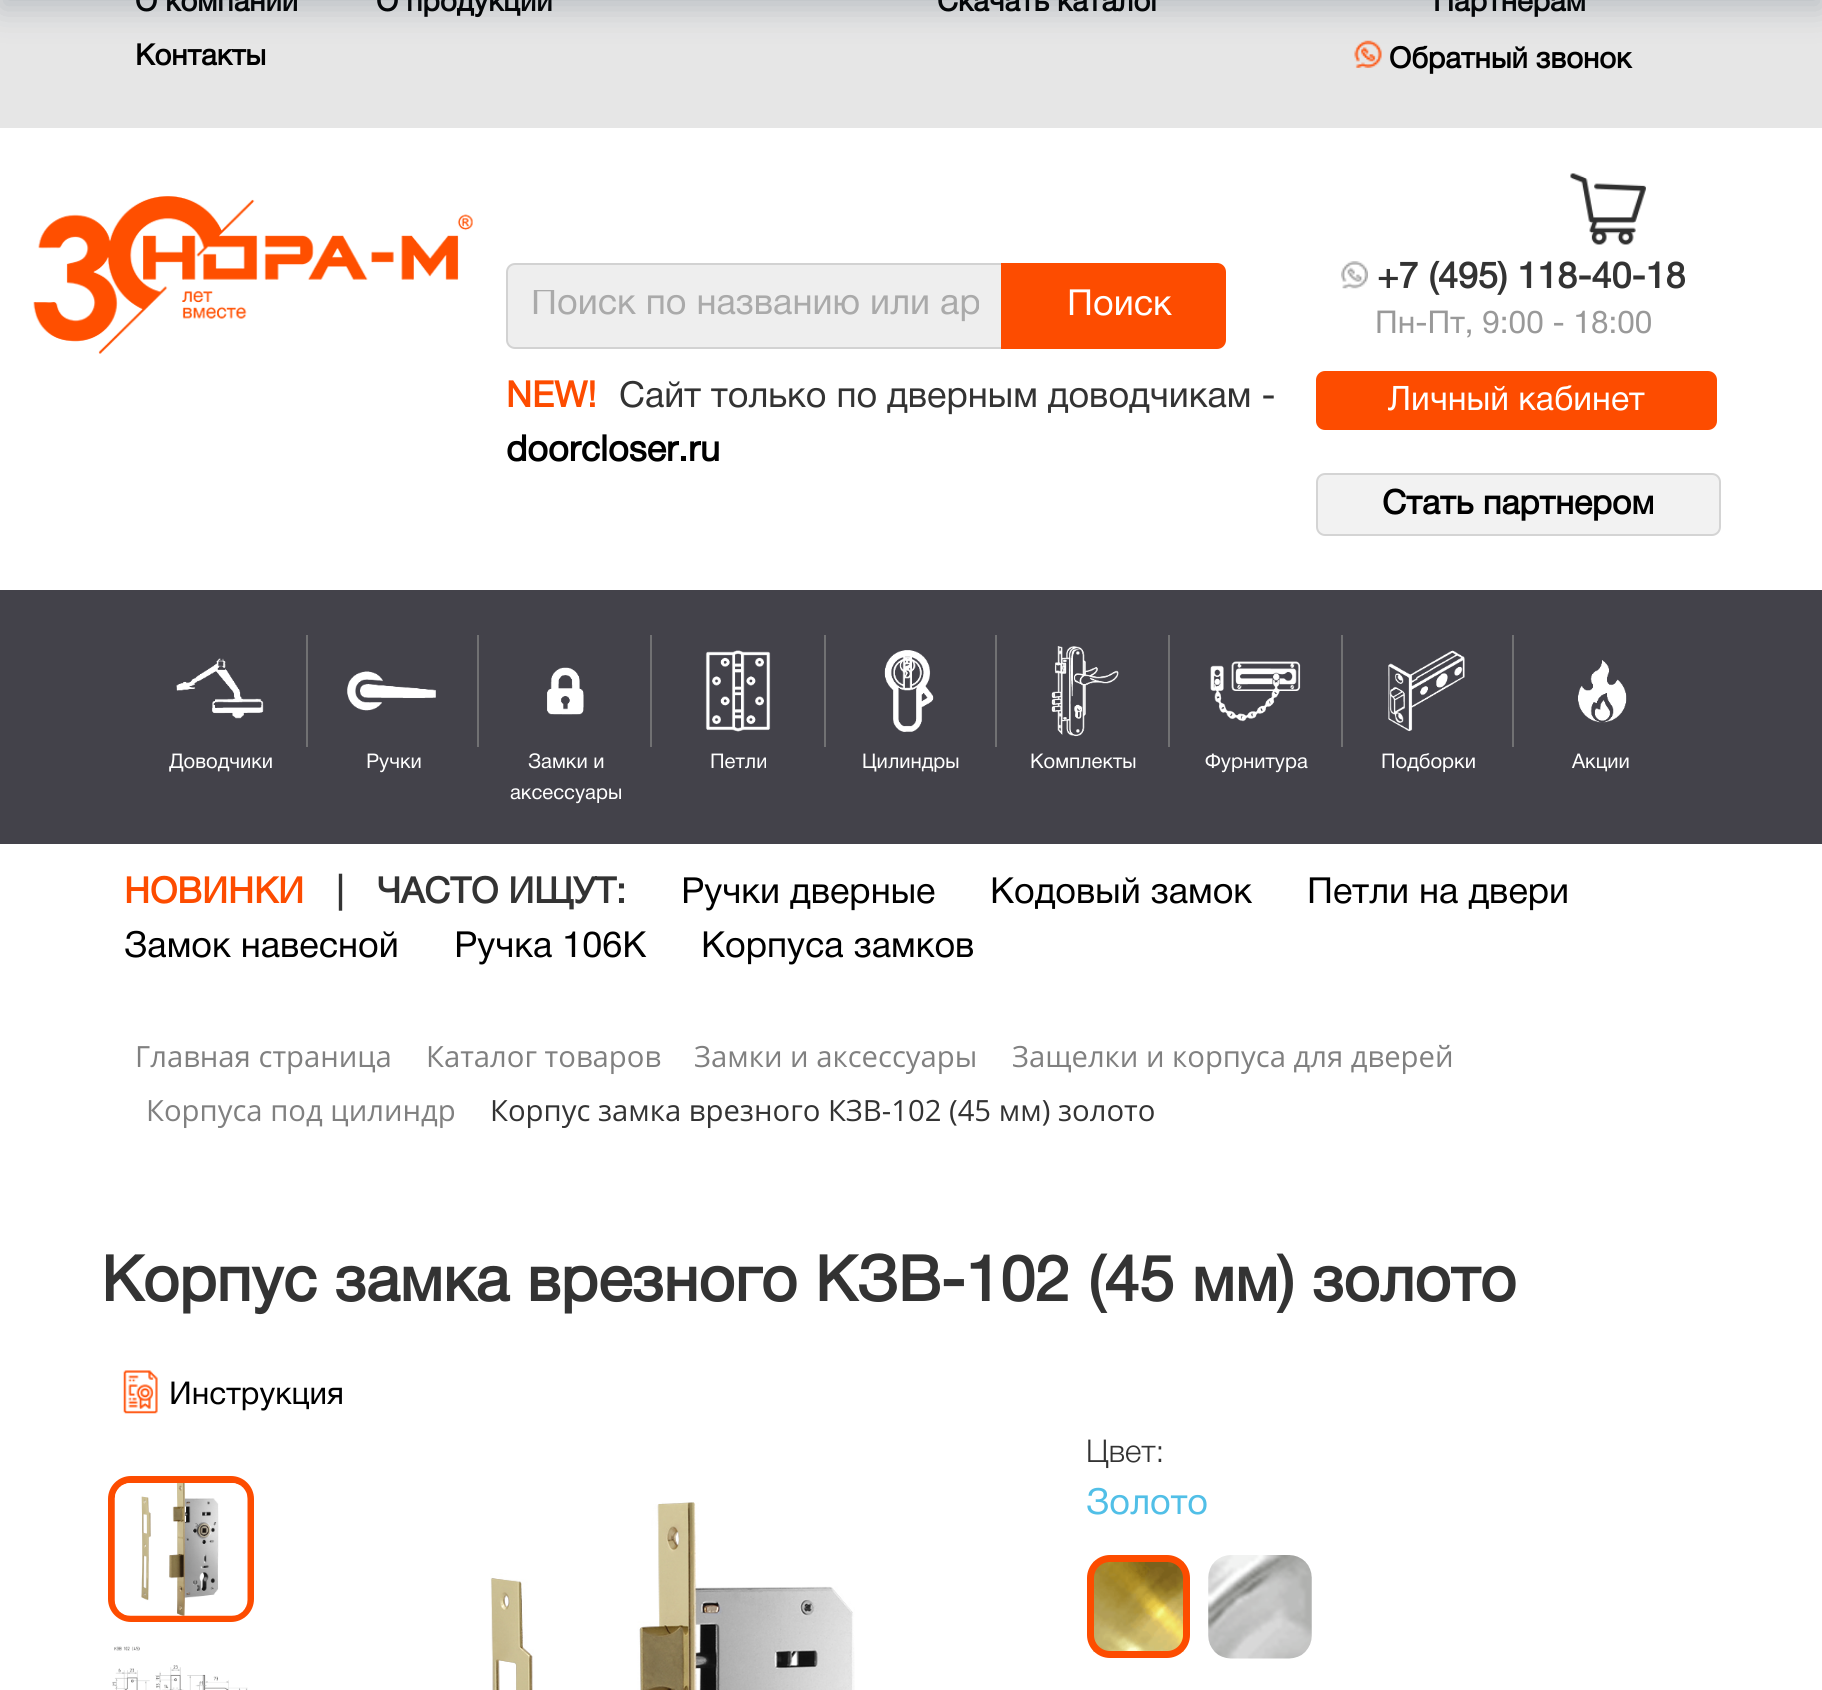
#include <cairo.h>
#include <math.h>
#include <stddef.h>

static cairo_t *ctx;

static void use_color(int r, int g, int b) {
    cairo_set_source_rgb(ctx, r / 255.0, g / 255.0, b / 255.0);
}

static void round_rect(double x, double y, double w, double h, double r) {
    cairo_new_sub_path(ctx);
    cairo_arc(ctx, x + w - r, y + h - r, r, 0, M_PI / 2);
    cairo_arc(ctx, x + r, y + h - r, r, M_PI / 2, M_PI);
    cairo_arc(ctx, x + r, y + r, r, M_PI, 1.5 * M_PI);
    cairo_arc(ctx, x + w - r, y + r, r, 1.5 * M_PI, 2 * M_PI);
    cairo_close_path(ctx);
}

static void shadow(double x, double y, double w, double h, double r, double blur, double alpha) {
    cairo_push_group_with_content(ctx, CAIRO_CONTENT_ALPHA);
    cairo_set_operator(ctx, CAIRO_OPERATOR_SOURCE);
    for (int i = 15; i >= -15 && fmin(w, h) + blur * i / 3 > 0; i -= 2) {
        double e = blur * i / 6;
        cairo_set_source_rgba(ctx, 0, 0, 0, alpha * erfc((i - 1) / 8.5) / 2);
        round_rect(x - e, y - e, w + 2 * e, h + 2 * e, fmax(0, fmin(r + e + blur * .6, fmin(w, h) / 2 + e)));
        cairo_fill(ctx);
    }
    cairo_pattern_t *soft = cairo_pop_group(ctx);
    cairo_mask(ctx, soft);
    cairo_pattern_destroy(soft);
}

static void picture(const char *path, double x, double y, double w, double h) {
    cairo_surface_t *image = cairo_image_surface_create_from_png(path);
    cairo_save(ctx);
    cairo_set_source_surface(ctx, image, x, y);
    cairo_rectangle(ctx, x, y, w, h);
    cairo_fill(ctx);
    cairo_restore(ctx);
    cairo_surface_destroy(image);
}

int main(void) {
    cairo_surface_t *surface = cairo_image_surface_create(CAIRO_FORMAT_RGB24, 1822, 1690);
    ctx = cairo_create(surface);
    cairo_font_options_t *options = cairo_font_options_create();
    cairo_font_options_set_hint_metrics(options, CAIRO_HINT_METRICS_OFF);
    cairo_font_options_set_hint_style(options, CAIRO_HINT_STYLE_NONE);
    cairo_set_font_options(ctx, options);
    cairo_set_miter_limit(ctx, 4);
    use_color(255, 255, 255);
    cairo_paint(ctx);
    use_color(230, 230, 230);
    cairo_rectangle(ctx, 0, 0, 1822, 128);
    cairo_fill(ctx);
    cairo_select_font_face(ctx, "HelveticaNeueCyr", CAIRO_FONT_SLANT_NORMAL, CAIRO_FONT_WEIGHT_BOLD);
    cairo_set_font_size(ctx, 29.25);
    use_color(0, 0, 0);
    cairo_move_to(ctx, 135, 11);
    cairo_show_text(ctx, "О компании");
    cairo_move_to(ctx, 376, 11);
    cairo_show_text(ctx, "О продукции");
    cairo_move_to(ctx, 937, 11);
    cairo_show_text(ctx, "Скачать каталог");
    cairo_move_to(ctx, 1433, 11);
    cairo_show_text(ctx, "Партнерам");
    cairo_move_to(ctx, 135, 65);
    cairo_show_text(ctx, "Контакты");
    picture("img1.png", 1354, 40, 28, 28);
    cairo_move_to(ctx, 1389, 68);
    cairo_show_text(ctx, "Обратный звонок");
    picture("img2.png", 33, 196, 440, 158);
    use_color(238, 238, 238);
    cairo_new_path(ctx);
    cairo_move_to(ctx, 515, 264);
    cairo_line_to(ctx, 1003, 264);
    cairo_line_to(ctx, 1003, 348);
    cairo_line_to(ctx, 515, 348);
    cairo_curve_to(ctx, 510.5, 348, 507, 344.5, 507, 340);
    cairo_line_to(ctx, 507, 272);
    cairo_curve_to(ctx, 507, 267.5, 510.5, 264, 515, 264);
    cairo_close_path(ctx);
    cairo_fill_preserve(ctx);
    use_color(210, 210, 210);
    cairo_stroke(ctx);
    cairo_save(ctx);
    cairo_rectangle(ctx, 531, 290, 448, 34);
    cairo_clip(ctx);
    cairo_select_font_face(ctx, "HelveticaNeueCyr", CAIRO_FONT_SLANT_NORMAL, CAIRO_FONT_WEIGHT_NORMAL);
    cairo_set_font_size(ctx, 36);
    use_color(170, 170, 170);
    cairo_move_to(ctx, 531, 314);
    cairo_show_text(ctx, "Поиск по названию или ар");
    cairo_restore(ctx);
    use_color(253, 76, 0);
    cairo_new_path(ctx);
    cairo_move_to(ctx, 1002, 264);
    cairo_line_to(ctx, 1217, 264);
    cairo_curve_to(ctx, 1221.5, 264, 1225, 267.5, 1225, 272);
    cairo_line_to(ctx, 1225, 340);
    cairo_curve_to(ctx, 1225, 344.5, 1221.5, 348, 1217, 348);
    cairo_line_to(ctx, 1002, 348);
    cairo_close_path(ctx);
    cairo_fill_preserve(ctx);
    cairo_stroke(ctx);
    cairo_select_font_face(ctx, "HelveticaNeueCyr", CAIRO_FONT_SLANT_NORMAL, CAIRO_FONT_WEIGHT_NORMAL);
    cairo_set_font_size(ctx, 36);
    use_color(255, 255, 255);
    cairo_move_to(ctx, 1067, 315);
    cairo_show_text(ctx, "Поиск");
    cairo_select_font_face(ctx, "HelveticaNeueCyr", CAIRO_FONT_SLANT_NORMAL, CAIRO_FONT_WEIGHT_BOLD);
    use_color(253, 76, 0);
    cairo_move_to(ctx, 506, 407);
    cairo_show_text(ctx, "NEW!");
    cairo_select_font_face(ctx, "HelveticaNeueCyr", CAIRO_FONT_SLANT_NORMAL, CAIRO_FONT_WEIGHT_NORMAL);
    use_color(51, 51, 51);
    cairo_move_to(ctx, 619, 407);
    cairo_show_text(ctx, "Сайт только по дверным доводчикам -");
    cairo_select_font_face(ctx, "HelveticaNeueCyr", CAIRO_FONT_SLANT_NORMAL, CAIRO_FONT_WEIGHT_BOLD);
    use_color(0, 0, 0);
    cairo_move_to(ctx, 506, 461);
    cairo_show_text(ctx, "doorcloser.ru");
    picture("img3.png", 1570, 173, 76, 72);
    picture("img4.png", 1341, 261, 27, 28);
    use_color(51, 51, 51);
    cairo_move_to(ctx, 1377, 288);
    cairo_show_text(ctx, "+7 (495) 118-40-18");
    cairo_select_font_face(ctx, "HelveticaNeueCyr", CAIRO_FONT_SLANT_NORMAL, CAIRO_FONT_WEIGHT_NORMAL);
    cairo_set_font_size(ctx, 31.5);
    use_color(153, 153, 153);
    cairo_move_to(ctx, 1375, 333);
    cairo_show_text(ctx, "Пн-Пт, 9:00 - 18:00");
    use_color(253, 76, 0);
    round_rect(1316, 371, 401, 59, 9);
    cairo_fill(ctx);
    cairo_set_font_size(ctx, 33.75);
    use_color(255, 255, 255);
    cairo_move_to(ctx, 1388, 410);
    cairo_show_text(ctx, "Личный кабинет");
    use_color(242, 242, 242);
    round_rect(1317, 474, 403, 61, 8);
    cairo_fill_preserve(ctx);
    use_color(212, 212, 212);
    cairo_stroke(ctx);
    cairo_select_font_face(ctx, "HelveticaNeueCyr", CAIRO_FONT_SLANT_NORMAL, CAIRO_FONT_WEIGHT_BOLD);
    use_color(0, 0, 0);
    cairo_move_to(ctx, 1382, 514);
    cairo_show_text(ctx, "Стать партнером");
    use_color(67, 66, 74);
    cairo_rectangle(ctx, 0, 590, 1822, 254);
    cairo_fill(ctx);
    use_color(113, 113, 115);
    cairo_rectangle(ctx, 306, 635, 2, 112);
    cairo_fill(ctx);
    picture("img5.png", 176, 658, 88, 61);
    cairo_select_font_face(ctx, "HelveticaNeueCyr", CAIRO_FONT_SLANT_NORMAL, CAIRO_FONT_WEIGHT_NORMAL);
    cairo_set_font_size(ctx, 20.25);
    use_color(255, 255, 255);
    cairo_move_to(ctx, 169, 768);
    cairo_show_text(ctx, "Доводчики");
    use_color(113, 113, 115);
    cairo_rectangle(ctx, 477, 635, 2, 112);
    cairo_fill(ctx);
    picture("img6.png", 347, 671, 89, 40);
    use_color(255, 255, 255);
    cairo_move_to(ctx, 366, 768);
    cairo_show_text(ctx, "Ручки");
    use_color(113, 113, 115);
    cairo_rectangle(ctx, 650, 635, 2, 112);
    cairo_fill(ctx);
    picture("img7.png", 547, 667, 37, 48);
    use_color(255, 255, 255);
    cairo_move_to(ctx, 528, 768);
    cairo_show_text(ctx, "Замки и");
    cairo_move_to(ctx, 510, 799);
    cairo_show_text(ctx, "аксессуары");
    use_color(113, 113, 115);
    cairo_rectangle(ctx, 824, 635, 2, 112);
    cairo_fill(ctx);
    picture("img8.png", 705, 650, 66, 82);
    use_color(255, 255, 255);
    cairo_move_to(ctx, 710, 768);
    cairo_show_text(ctx, "Петли");
    use_color(113, 113, 115);
    cairo_rectangle(ctx, 995, 635, 2, 112);
    cairo_fill(ctx);
    picture("img9.png", 884, 650, 50, 82);
    use_color(255, 255, 255);
    cairo_move_to(ctx, 862, 768);
    cairo_show_text(ctx, "Цилиндры");
    use_color(113, 113, 115);
    cairo_rectangle(ctx, 1168, 635, 2, 112);
    cairo_fill(ctx);
    picture("img10.png", 1051, 646, 68, 91);
    use_color(255, 255, 255);
    cairo_move_to(ctx, 1030, 768);
    cairo_show_text(ctx, "Комплекты");
    use_color(113, 113, 115);
    cairo_rectangle(ctx, 1341, 635, 2, 112);
    cairo_fill(ctx);
    picture("img11.png", 1210, 661, 91, 61);
    use_color(255, 255, 255);
    cairo_move_to(ctx, 1205, 768);
    cairo_show_text(ctx, "Фурнитура");
    use_color(113, 113, 115);
    cairo_rectangle(ctx, 1512, 635, 2, 112);
    cairo_fill(ctx);
    picture("img12.png", 1388, 650, 77, 82);
    use_color(255, 255, 255);
    cairo_move_to(ctx, 1381, 768);
    cairo_show_text(ctx, "Подборки");
    picture("img13.png", 1578, 660, 49, 63);
    cairo_move_to(ctx, 1572, 768);
    cairo_show_text(ctx, "Акции");
    cairo_select_font_face(ctx, "HelveticaNeueCyr", CAIRO_FONT_SLANT_NORMAL, CAIRO_FONT_WEIGHT_BOLD);
    cairo_set_font_size(ctx, 36);
    use_color(253, 76, 0);
    cairo_move_to(ctx, 124, 903);
    cairo_show_text(ctx, "НОВИНКИ");
    use_color(51, 51, 51);
    cairo_move_to(ctx, 336, 903);
    cairo_show_text(ctx, "|");
    cairo_move_to(ctx, 377, 903);
    cairo_show_text(ctx, "ЧАСТО ИЩУТ:");
    cairo_select_font_face(ctx, "HelveticaNeueCyr", CAIRO_FONT_SLANT_NORMAL, CAIRO_FONT_WEIGHT_NORMAL);
    use_color(0, 0, 0);
    cairo_move_to(ctx, 681, 903);
    cairo_show_text(ctx, "Ручки дверные");
    cairo_move_to(ctx, 990, 903);
    cairo_show_text(ctx, "Кодовый замок");
    cairo_move_to(ctx, 1307, 903);
    cairo_show_text(ctx, "Петли на двери");
    cairo_move_to(ctx, 124, 957);
    cairo_show_text(ctx, "Замок навесной");
    cairo_move_to(ctx, 454, 957);
    cairo_show_text(ctx, "Ручка 106K");
    cairo_move_to(ctx, 701, 957);
    cairo_show_text(ctx, "Корпуса замков");
    cairo_select_font_face(ctx, "Open Sans", CAIRO_FONT_SLANT_NORMAL, CAIRO_FONT_WEIGHT_NORMAL);
    cairo_set_font_size(ctx, 29.25);
    use_color(128, 128, 128);
    cairo_move_to(ctx, 135, 1067);
    cairo_show_text(ctx, "Главная страница");
    cairo_move_to(ctx, 426, 1067);
    cairo_show_text(ctx, "Каталог товаров");
    cairo_move_to(ctx, 694, 1067);
    cairo_show_text(ctx, "Замки и аксессуары");
    cairo_move_to(ctx, 1012, 1067);
    cairo_show_text(ctx, "Защелки и корпуса для дверей");
    cairo_move_to(ctx, 146, 1121);
    cairo_show_text(ctx, "Корпуса под цилиндр");
    use_color(51, 51, 51);
    cairo_move_to(ctx, 490, 1121);
    cairo_show_text(ctx, "Корпус замка врезного КЗВ-102 (45 мм) золото");
    use_color(32, 54, 74);
    shadow(0, -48, 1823, 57, 0, 16, 0.23);
    cairo_select_font_face(ctx, "HelveticaNeueCyr", CAIRO_FONT_SLANT_NORMAL, CAIRO_FONT_WEIGHT_BOLD);
    cairo_set_font_size(ctx, 63);
    use_color(51, 51, 51);
    cairo_move_to(ctx, 101, 1301);
    cairo_show_text(ctx, "Корпус замка врезного КЗВ-102 (45 мм) золото");
    picture("img14.png", 123, 1370, 35, 44);
    cairo_select_font_face(ctx, "HelveticaNeueCyr", CAIRO_FONT_SLANT_NORMAL, CAIRO_FONT_WEIGHT_NORMAL);
    cairo_set_font_size(ctx, 31.5);
    use_color(0, 0, 0);
    cairo_move_to(ctx, 169, 1404);
    cairo_show_text(ctx, "Инструкция");
    round_rect(111.5, 1479.5, 139, 139, 19.5);
    use_color(253, 76, 0);
    cairo_set_line_width(ctx, 7);
    cairo_stroke(ctx);
    picture("img15.png", 114, 1483, 134, 133);
    picture("img16.png", 112, 1646, 136, 44);
    picture("img17.png", 490, 1502, 365, 188);
    cairo_select_font_face(ctx, "HelveticaNeueCyr Light", CAIRO_FONT_SLANT_NORMAL, CAIRO_FONT_WEIGHT_NORMAL);
    use_color(51, 51, 51);
    cairo_move_to(ctx, 1086, 1462);
    cairo_show_text(ctx, "Цвет:");
    cairo_select_font_face(ctx, "HelveticaNeueCyr", CAIRO_FONT_SLANT_NORMAL, CAIRO_FONT_WEIGHT_NORMAL);
    cairo_set_font_size(ctx, 36);
    use_color(81, 191, 231);
    cairo_move_to(ctx, 1086, 1514);
    cairo_show_text(ctx, "Золото");
    picture("img18.png", 1093, 1561, 91, 91);
    round_rect(1090.5, 1558.5, 96, 96, 19.5);
    use_color(253, 76, 0);
    cairo_stroke(ctx);
    picture("img19.png", 1208, 1555, 104, 104);
    cairo_surface_write_to_png(surface, "result.png");
    cairo_font_options_destroy(options);
    cairo_destroy(ctx);
    cairo_surface_destroy(surface);
    return 0;
}
